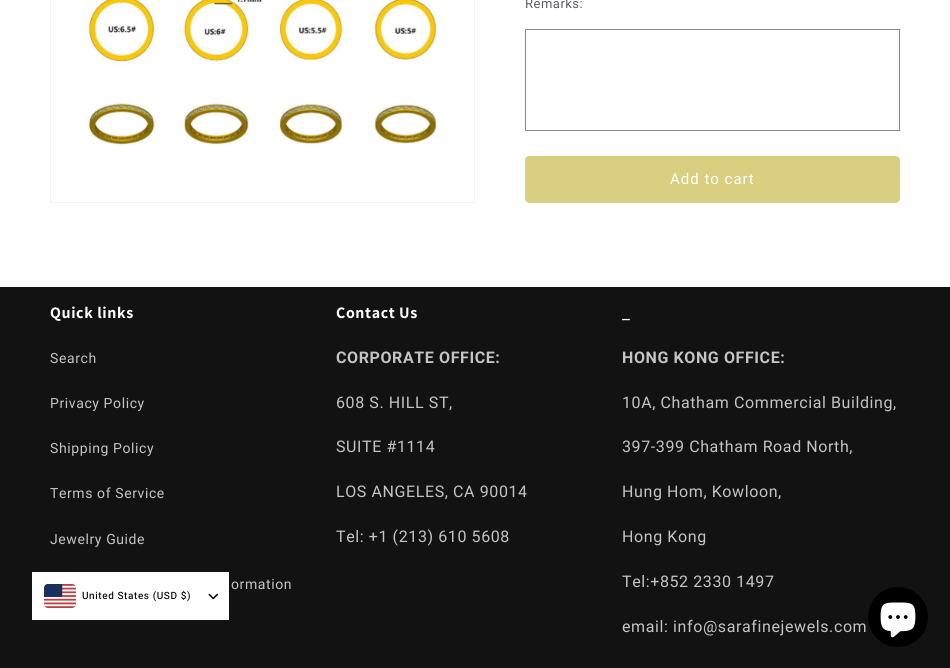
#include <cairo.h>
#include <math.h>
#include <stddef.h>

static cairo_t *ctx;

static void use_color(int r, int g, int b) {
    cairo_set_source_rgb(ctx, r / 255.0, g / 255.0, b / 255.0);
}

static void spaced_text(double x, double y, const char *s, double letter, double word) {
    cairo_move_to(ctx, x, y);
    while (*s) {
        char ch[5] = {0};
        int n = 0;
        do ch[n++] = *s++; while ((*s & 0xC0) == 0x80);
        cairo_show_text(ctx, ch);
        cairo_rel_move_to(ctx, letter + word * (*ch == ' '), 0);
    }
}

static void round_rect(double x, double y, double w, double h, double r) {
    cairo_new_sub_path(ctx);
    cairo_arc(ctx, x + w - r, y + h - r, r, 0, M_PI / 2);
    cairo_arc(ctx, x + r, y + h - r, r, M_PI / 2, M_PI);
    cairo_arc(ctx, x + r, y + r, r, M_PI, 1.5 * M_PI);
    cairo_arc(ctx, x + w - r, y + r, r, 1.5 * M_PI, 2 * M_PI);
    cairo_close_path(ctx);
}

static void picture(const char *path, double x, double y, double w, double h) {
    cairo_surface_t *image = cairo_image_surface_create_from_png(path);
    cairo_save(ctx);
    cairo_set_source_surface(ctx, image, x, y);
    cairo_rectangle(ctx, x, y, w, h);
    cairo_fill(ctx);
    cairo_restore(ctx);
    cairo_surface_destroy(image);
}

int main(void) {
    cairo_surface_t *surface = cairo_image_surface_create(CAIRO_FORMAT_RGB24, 950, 668);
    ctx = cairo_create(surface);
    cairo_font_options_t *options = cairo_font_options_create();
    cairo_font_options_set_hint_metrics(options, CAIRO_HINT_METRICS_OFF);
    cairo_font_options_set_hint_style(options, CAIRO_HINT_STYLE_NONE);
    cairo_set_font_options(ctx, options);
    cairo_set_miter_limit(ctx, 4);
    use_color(255, 255, 255);
    cairo_paint(ctx);
    cairo_rectangle(ctx, 50.5, -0.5, 424, 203);
    use_color(244, 244, 245);
    cairo_set_line_width(ctx, 1);
    cairo_stroke(ctx);
    picture("img1.png", 85, 0, 356, 146);
    cairo_select_font_face(ctx, "Roboto", CAIRO_FONT_SLANT_NORMAL, CAIRO_FONT_WEIGHT_NORMAL);
    cairo_set_font_size(ctx, 13);
    use_color(91, 94, 102);
    spaced_text(525, 8, "Remarks:", 0.5, 0);
    cairo_rectangle(ctx, 525.5, 29.5, 374, 101);
    use_color(135, 137, 143);
    cairo_stroke(ctx);
    use_color(218, 207, 128);
    round_rect(525, 156, 375, 47, 5);
    cairo_fill(ctx);
    round_rect(525.5, 156.5, 374, 46, 4.5);
    cairo_stroke(ctx);
    cairo_set_font_size(ctx, 15);
    use_color(255, 255, 255);
    spaced_text(670, 184, "Add to cart", 1, 0);
    use_color(18, 18, 18);
    cairo_rectangle(ctx, 0, 287, 950, 381);
    cairo_fill(ctx);
    cairo_select_font_face(ctx, "Assistant", CAIRO_FONT_SLANT_NORMAL, CAIRO_FONT_WEIGHT_BOLD);
    cairo_set_font_size(ctx, 16);
    use_color(255, 255, 255);
    spaced_text(50, 318, "Quick links", 0.6, 0);
    cairo_select_font_face(ctx, "Roboto", CAIRO_FONT_SLANT_NORMAL, CAIRO_FONT_WEIGHT_NORMAL);
    cairo_set_font_size(ctx, 14);
    use_color(196, 196, 196);
    spaced_text(50, 363, "Search", 0.6, 0);
    spaced_text(50, 408, "Privacy Policy", 0.6, 0);
    spaced_text(50, 453, "Shipping Policy", 0.6, 0);
    spaced_text(50, 498, "Terms of Service", 0.6, 0);
    spaced_text(50, 544, "Jewelry Guide", 0.6, 0);
    spaced_text(231, 589, "ormation", 0.6, 0);
    cairo_select_font_face(ctx, "Assistant", CAIRO_FONT_SLANT_NORMAL, CAIRO_FONT_WEIGHT_BOLD);
    cairo_set_font_size(ctx, 16);
    use_color(255, 255, 255);
    spaced_text(336, 318, "Contact Us", 0.6, 0);
    cairo_select_font_face(ctx, "Roboto", CAIRO_FONT_SLANT_NORMAL, CAIRO_FONT_WEIGHT_BOLD);
    use_color(196, 196, 196);
    spaced_text(336, 363, "CORPORATE OFFICE:", 0.6, 0);
    cairo_select_font_face(ctx, "Roboto", CAIRO_FONT_SLANT_NORMAL, CAIRO_FONT_WEIGHT_NORMAL);
    spaced_text(336, 408, "608 S. HILL ST,", 0.6, 0);
    spaced_text(336, 452, "SUITE #1114", 0.6, 0);
    spaced_text(336, 497, "LOS ANGELES, CA 90014", 0.6, 0);
    spaced_text(336, 542, "Tel: +1 (213) 610 5608", 0.6, 0);
    cairo_select_font_face(ctx, "Assistant", CAIRO_FONT_SLANT_NORMAL, CAIRO_FONT_WEIGHT_BOLD);
    use_color(255, 255, 255);
    spaced_text(622, 318, "_", 0.6, 0);
    cairo_select_font_face(ctx, "Roboto", CAIRO_FONT_SLANT_NORMAL, CAIRO_FONT_WEIGHT_BOLD);
    use_color(196, 196, 196);
    spaced_text(622, 363, "HONG KONG OFFICE:", 0.6, 0);
    cairo_select_font_face(ctx, "Roboto", CAIRO_FONT_SLANT_NORMAL, CAIRO_FONT_WEIGHT_NORMAL);
    spaced_text(622, 408, "10A, Chatham Commercial Building,", 0.6, 0);
    spaced_text(622, 452, "397-399 Chatham Road North,", 0.6, 0);
    spaced_text(622, 497, "Hung Hom, Kowloon,", 0.6, 0);
    spaced_text(622, 542, "Hong Kong", 0.6, 0);
    spaced_text(622, 587, "Tel:+852 2330 1497", 0.6, 0);
    spaced_text(622, 632, "email: info@sarafinejewels.com", 0.6, 0);
    use_color(0, 0, 0);
    cairo_new_path(ctx);
    cairo_arc(ctx, 898, 617, 30, 0, 2 * M_PI);
    cairo_fill(ctx);
    picture("img2.png", 880, 602, 36, 36);
    use_color(255, 255, 255);
    cairo_rectangle(ctx, 32, 572, 197, 48);
    cairo_fill(ctx);
    picture("img3.png", 44, 584, 32, 24);
    cairo_select_font_face(ctx, "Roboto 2", CAIRO_FONT_SLANT_NORMAL, CAIRO_FONT_WEIGHT_NORMAL);
    cairo_set_font_size(ctx, 10);
    use_color(0, 0, 0);
    spaced_text(82, 599, "United States (USD $)", 0.6, 0);
    picture("img4.png", 208, 593, 10, 7);
    cairo_surface_write_to_png(surface, "result.png");
    cairo_font_options_destroy(options);
    cairo_destroy(ctx);
    cairo_surface_destroy(surface);
    return 0;
}
